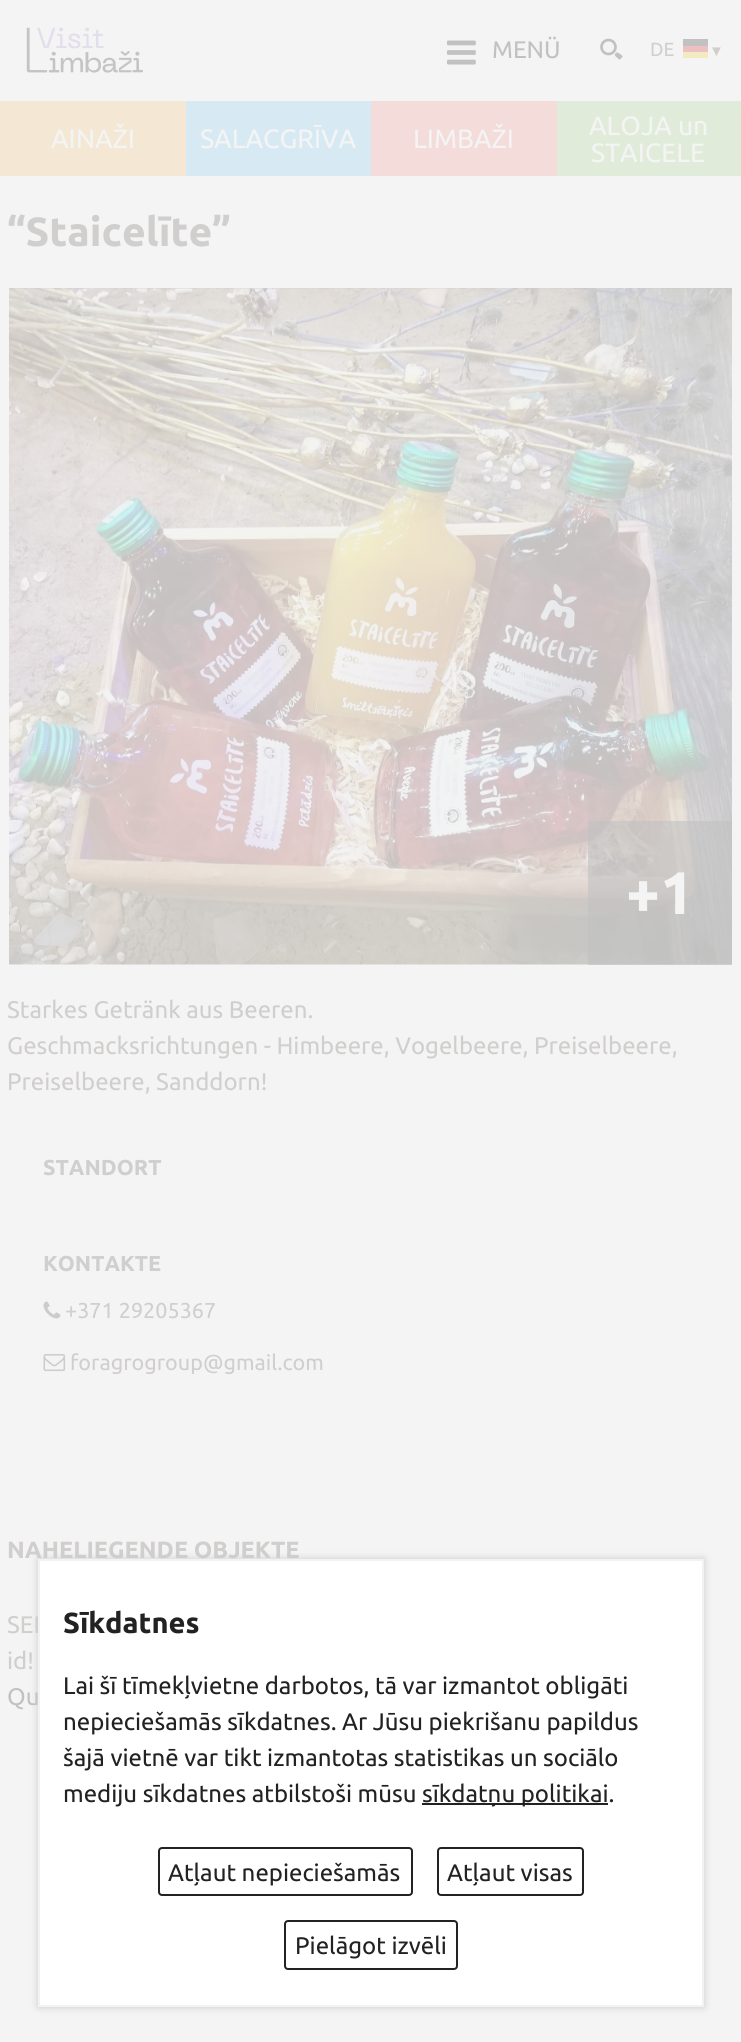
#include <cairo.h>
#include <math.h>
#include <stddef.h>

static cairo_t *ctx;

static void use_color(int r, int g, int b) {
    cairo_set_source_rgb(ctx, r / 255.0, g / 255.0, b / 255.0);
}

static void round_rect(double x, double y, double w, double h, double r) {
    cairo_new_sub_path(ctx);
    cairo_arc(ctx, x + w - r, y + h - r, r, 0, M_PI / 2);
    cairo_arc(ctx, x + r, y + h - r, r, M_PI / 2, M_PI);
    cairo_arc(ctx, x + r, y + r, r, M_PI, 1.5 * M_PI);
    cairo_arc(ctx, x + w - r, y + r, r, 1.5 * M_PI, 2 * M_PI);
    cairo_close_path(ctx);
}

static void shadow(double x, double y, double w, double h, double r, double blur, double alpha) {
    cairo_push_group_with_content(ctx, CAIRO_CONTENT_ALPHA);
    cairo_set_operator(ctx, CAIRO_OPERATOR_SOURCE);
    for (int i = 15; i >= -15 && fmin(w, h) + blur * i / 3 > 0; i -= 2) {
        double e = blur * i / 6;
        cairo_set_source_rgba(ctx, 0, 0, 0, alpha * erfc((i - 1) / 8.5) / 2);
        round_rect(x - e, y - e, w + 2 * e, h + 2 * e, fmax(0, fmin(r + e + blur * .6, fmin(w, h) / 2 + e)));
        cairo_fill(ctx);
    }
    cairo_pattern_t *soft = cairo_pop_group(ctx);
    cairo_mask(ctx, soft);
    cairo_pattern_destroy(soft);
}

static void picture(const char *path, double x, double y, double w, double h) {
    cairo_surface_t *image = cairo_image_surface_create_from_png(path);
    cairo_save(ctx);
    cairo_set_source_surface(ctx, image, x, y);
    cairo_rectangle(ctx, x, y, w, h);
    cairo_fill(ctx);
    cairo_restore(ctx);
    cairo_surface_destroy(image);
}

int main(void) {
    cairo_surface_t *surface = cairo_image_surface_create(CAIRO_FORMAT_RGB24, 741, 2042);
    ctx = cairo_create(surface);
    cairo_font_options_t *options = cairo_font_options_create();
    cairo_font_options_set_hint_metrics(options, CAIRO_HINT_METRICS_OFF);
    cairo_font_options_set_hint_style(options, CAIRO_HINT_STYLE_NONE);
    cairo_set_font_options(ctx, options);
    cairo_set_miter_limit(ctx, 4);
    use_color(244, 244, 244);
    cairo_paint(ctx);
    picture("img1.png", 26, 27, 117, 46);
    picture("img2.png", 447, 40, 29, 25);
    cairo_select_font_face(ctx, "Ubuntu", CAIRO_FONT_SLANT_NORMAL, CAIRO_FONT_WEIGHT_NORMAL);
    cairo_set_font_size(ctx, 24);
    use_color(193, 193, 193);
    cairo_move_to(ctx, 492, 58);
    cairo_show_text(ctx, "MENÜ");
    picture("img3.png", 600, 38, 23, 22);
    cairo_set_font_size(ctx, 19);
    use_color(209, 207, 206);
    cairo_move_to(ctx, 650, 56);
    cairo_show_text(ctx, "DE");
    use_color(244, 234, 193);
    cairo_rectangle(ctx, 683, 52, 25, 6);
    cairo_fill(ctx);
    use_color(193, 193, 193);
    cairo_rectangle(ctx, 683, 39, 25, 7);
    cairo_fill(ctx);
    use_color(237, 193, 193);
    cairo_rectangle(ctx, 683, 46, 25, 6);
    cairo_fill(ctx);
    cairo_select_font_face(ctx, "Liberation Sans", CAIRO_FONT_SLANT_NORMAL, CAIRO_FONT_WEIGHT_NORMAL);
    cairo_set_font_size(ctx, 15);
    use_color(209, 207, 206);
    cairo_move_to(ctx, 709, 56);
    cairo_show_text(ctx, "▼");
    use_color(244, 232, 213);
    cairo_rectangle(ctx, 0, 101, 186, 75);
    cairo_fill(ctx);
    cairo_select_font_face(ctx, "Ubuntu", CAIRO_FONT_SLANT_NORMAL, CAIRO_FONT_WEIGHT_NORMAL);
    cairo_set_font_size(ctx, 26.5);
    use_color(244, 244, 244);
    cairo_move_to(ctx, 51, 148);
    cairo_show_text(ctx, "AINAŽI");
    use_color(215, 234, 244);
    cairo_rectangle(ctx, 186, 101, 185, 75);
    cairo_fill(ctx);
    use_color(244, 244, 244);
    cairo_move_to(ctx, 200, 148);
    cairo_show_text(ctx, "SALACGRĪVA");
    use_color(244, 220, 218);
    cairo_rectangle(ctx, 371, 101, 186, 75);
    cairo_fill(ctx);
    use_color(244, 244, 244);
    cairo_move_to(ctx, 413, 148);
    cairo_show_text(ctx, "LIMBAŽI");
    use_color(224, 236, 217);
    cairo_rectangle(ctx, 557, 101, 184, 75);
    cairo_fill(ctx);
    use_color(244, 244, 244);
    cairo_move_to(ctx, 589, 135);
    cairo_show_text(ctx, "ALOJA un");
    cairo_move_to(ctx, 591, 162);
    cairo_show_text(ctx, "STAICELE");
    cairo_select_font_face(ctx, "Ubuntu", CAIRO_FONT_SLANT_NORMAL, CAIRO_FONT_WEIGHT_BOLD);
    cairo_set_font_size(ctx, 40.75);
    use_color(209, 207, 206);
    cairo_move_to(ctx, 7, 246);
    cairo_show_text(ctx, "“Staicelīte”");
    picture("img4.png", 9, 288, 723, 677);
    cairo_set_source_rgba(ctx, 0.757, 0.757, 0.757, 0.6);
    cairo_rectangle(ctx, 588, 821, 144, 144);
    cairo_fill(ctx);
    cairo_set_font_size(ctx, 60);
    use_color(244, 244, 244);
    cairo_move_to(ctx, 626, 914);
    cairo_show_text(ctx, "+1");
    cairo_select_font_face(ctx, "Ubuntu", CAIRO_FONT_SLANT_NORMAL, CAIRO_FONT_WEIGHT_NORMAL);
    cairo_set_font_size(ctx, 24);
    use_color(209, 207, 206);
    cairo_move_to(ctx, 7, 1018);
    cairo_show_text(ctx, "Starkes Getränk aus Beeren.");
    cairo_move_to(ctx, 7, 1054);
    cairo_show_text(ctx, "Geschmacksrichtungen - Himbeere, Vogelbeere, Preiselbeere,");
    cairo_move_to(ctx, 7, 1090);
    cairo_show_text(ctx, "Preiselbeere, Sanddorn!");
    cairo_select_font_face(ctx, "Ubuntu", CAIRO_FONT_SLANT_NORMAL, CAIRO_FONT_WEIGHT_BOLD);
    cairo_set_font_size(ctx, 21.6);
    cairo_move_to(ctx, 43, 1175);
    cairo_show_text(ctx, "STANDORT");
    cairo_move_to(ctx, 43, 1271);
    cairo_show_text(ctx, "KONTAKTE");
    picture("img5.png", 43, 1301, 18, 18);
    cairo_select_font_face(ctx, "Ubuntu", CAIRO_FONT_SLANT_NORMAL, CAIRO_FONT_WEIGHT_NORMAL);
    cairo_move_to(ctx, 65, 1318);
    cairo_show_text(ctx, "+371 29205367");
    picture("img6.png", 43, 1354, 23, 18);
    cairo_move_to(ctx, 70, 1370);
    cairo_show_text(ctx, "foragrogroup@gmail.com");
    cairo_select_font_face(ctx, "Ubuntu", CAIRO_FONT_SLANT_NORMAL, CAIRO_FONT_WEIGHT_BOLD);
    cairo_set_font_size(ctx, 23.5);
    cairo_move_to(ctx, 7, 1558);
    cairo_show_text(ctx, "NAHELIEGENDE OBJEKTE");
    cairo_select_font_face(ctx, "Ubuntu", CAIRO_FONT_SLANT_NORMAL, CAIRO_FONT_WEIGHT_NORMAL);
    cairo_set_font_size(ctx, 24);
    cairo_move_to(ctx, 7, 1633);
    cairo_show_text(ctx, "SEL");
    cairo_move_to(ctx, 7, 1669);
    cairo_show_text(ctx, "id!");
    use_color(193, 193, 193);
    cairo_move_to(ctx, 7, 1705);
    cairo_show_text(ctx, "Qu");
    use_color(204, 204, 204);
    shadow(38, 1559, 666, 448, 0, 4, 1);
    use_color(255, 255, 255);
    cairo_rectangle(ctx, 39, 1560, 664, 446);
    cairo_fill_preserve(ctx);
    use_color(242, 242, 242);
    cairo_stroke(ctx);
    cairo_select_font_face(ctx, "Ubuntu", CAIRO_FONT_SLANT_NORMAL, CAIRO_FONT_WEIGHT_BOLD);
    cairo_set_font_size(ctx, 29);
    use_color(34, 34, 34);
    cairo_move_to(ctx, 63, 1633);
    cairo_show_text(ctx, "Sīkdatnes");
    cairo_select_font_face(ctx, "Ubuntu", CAIRO_FONT_SLANT_NORMAL, CAIRO_FONT_WEIGHT_NORMAL);
    cairo_set_font_size(ctx, 24);
    cairo_move_to(ctx, 63, 1694);
    cairo_show_text(ctx, "Lai šī tīmekļvietne darbotos, tā var izmantot obligāti");
    cairo_move_to(ctx, 63, 1730);
    cairo_show_text(ctx, "nepieciešamās sīkdatnes. Ar Jūsu piekrišanu papildus");
    cairo_move_to(ctx, 63, 1766);
    cairo_show_text(ctx, "šajā vietnē var tikt izmantotas statistikas un sociālo");
    cairo_move_to(ctx, 63, 1802);
    cairo_show_text(ctx, "mediju sīkdatnes atbilstoši mūsu");
    cairo_rectangle(ctx, 422, 1803, 186, 2);
    cairo_fill(ctx);
    cairo_move_to(ctx, 422, 1802);
    cairo_show_text(ctx, "sīkdatņu politikai.");
    round_rect(159, 1848, 253, 47, 3);
    cairo_stroke(ctx);
    cairo_move_to(ctx, 168, 1881);
    cairo_show_text(ctx, "Atļaut nepieciešamās");
    round_rect(438, 1848, 145, 47, 3);
    cairo_stroke(ctx);
    cairo_move_to(ctx, 447, 1881);
    cairo_show_text(ctx, "Atļaut visas");
    round_rect(285, 1921, 172, 48, 3);
    cairo_stroke(ctx);
    cairo_move_to(ctx, 295, 1954);
    cairo_show_text(ctx, "Pielāgot izvēli");
    cairo_surface_write_to_png(surface, "result.png");
    cairo_font_options_destroy(options);
    cairo_destroy(ctx);
    cairo_surface_destroy(surface);
    return 0;
}
